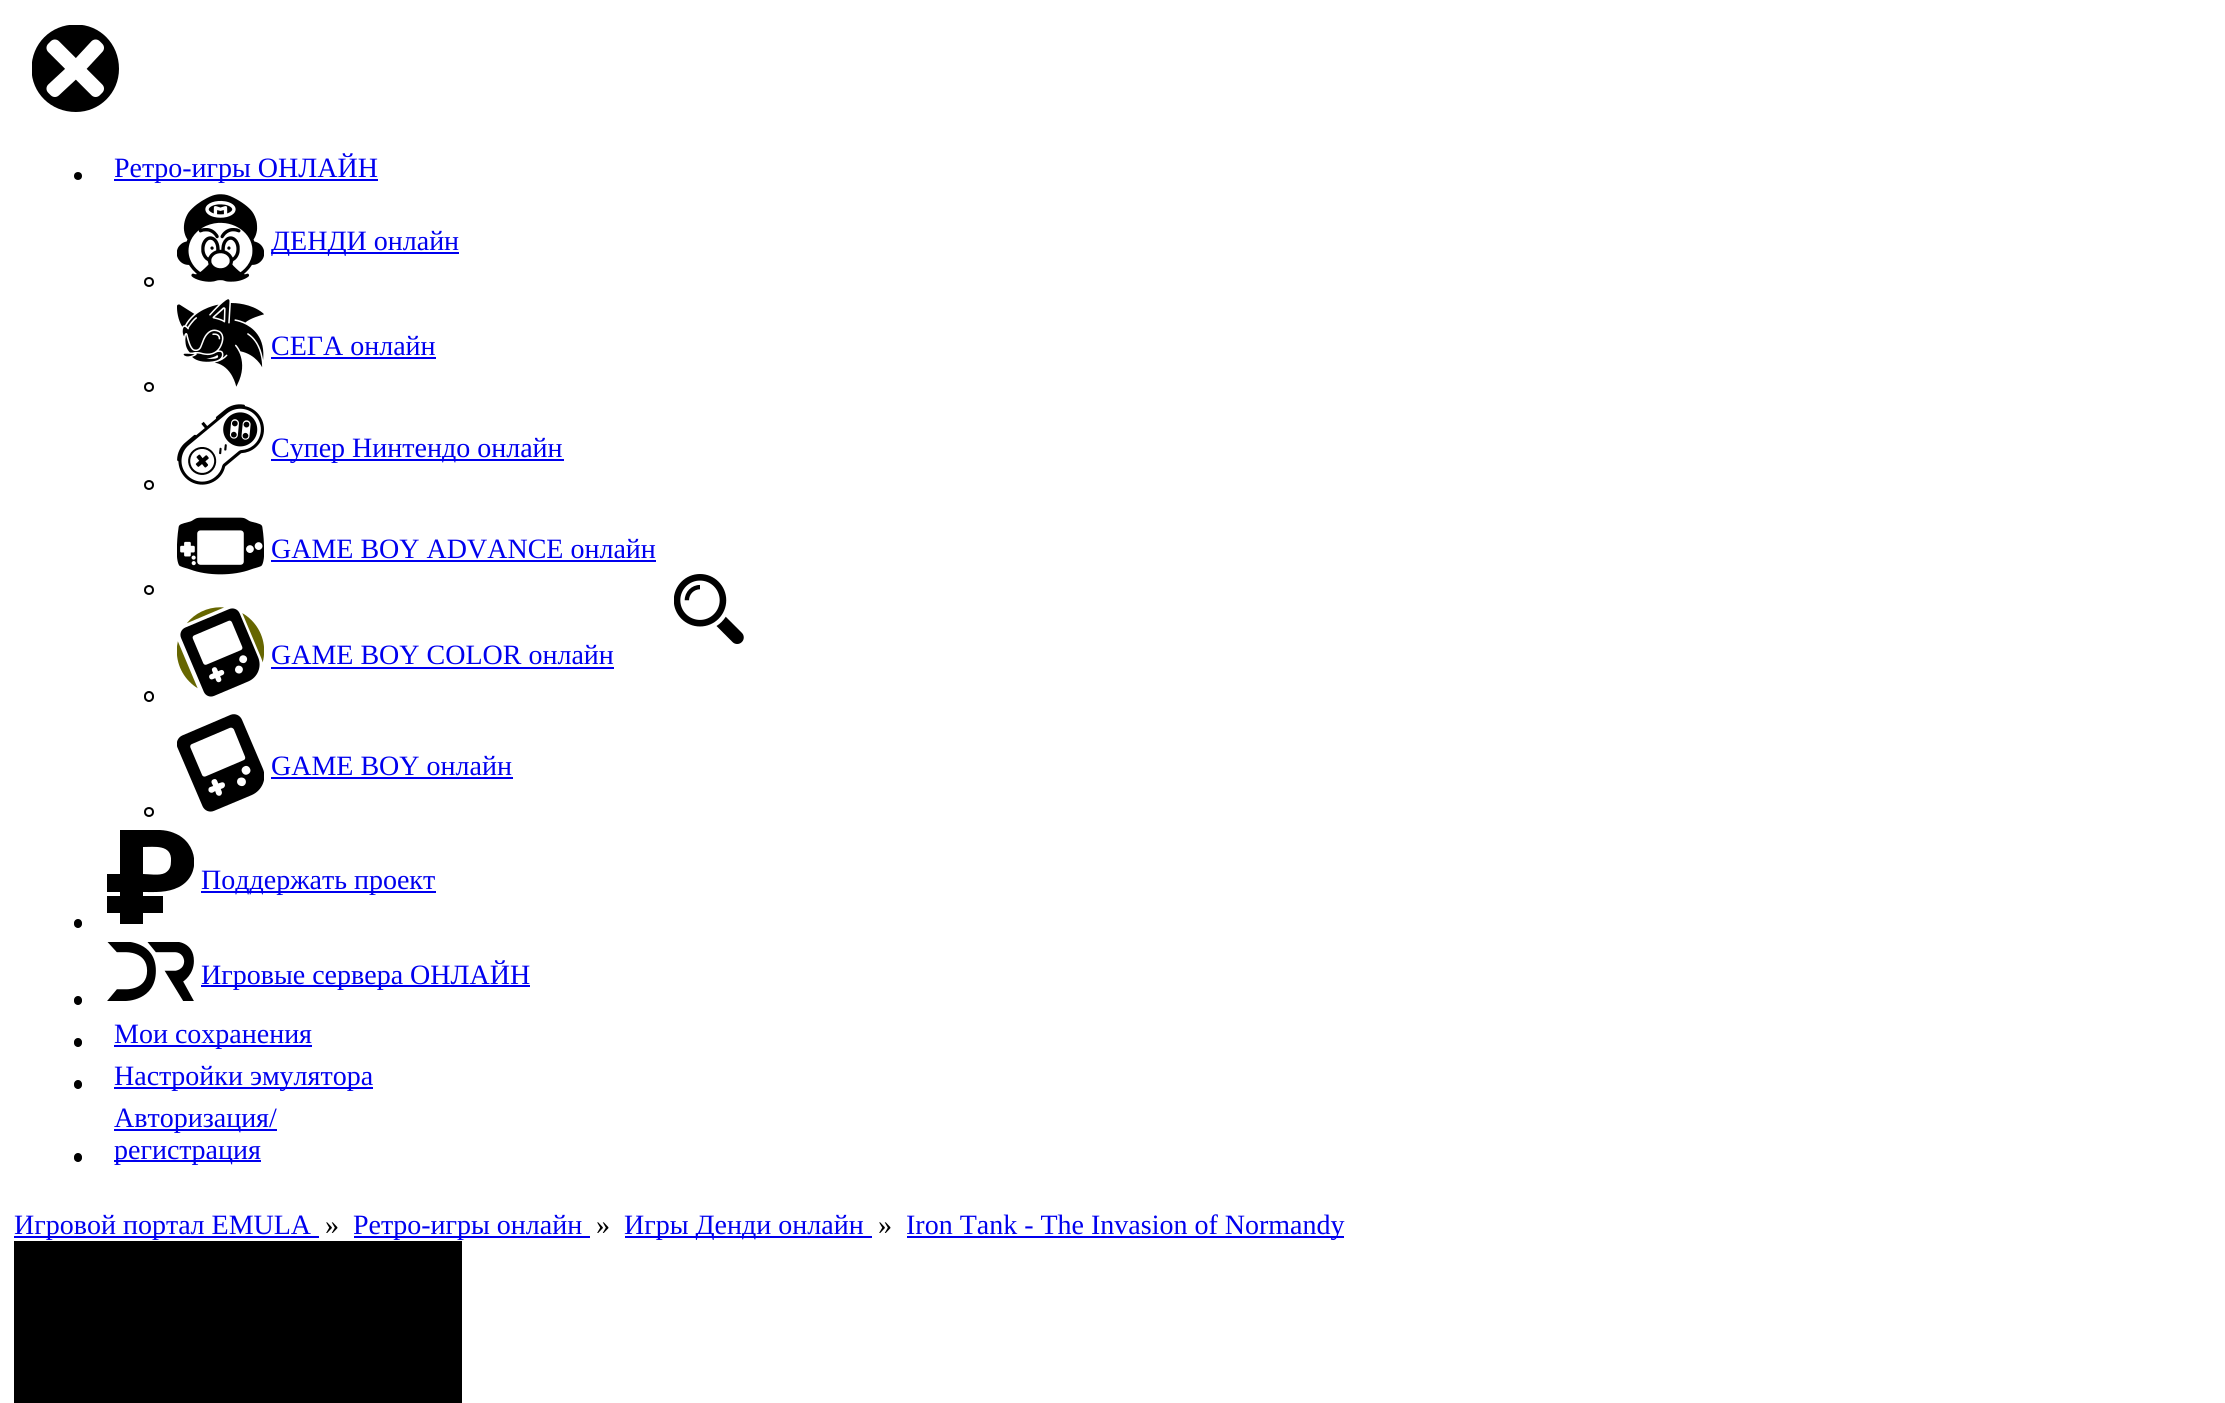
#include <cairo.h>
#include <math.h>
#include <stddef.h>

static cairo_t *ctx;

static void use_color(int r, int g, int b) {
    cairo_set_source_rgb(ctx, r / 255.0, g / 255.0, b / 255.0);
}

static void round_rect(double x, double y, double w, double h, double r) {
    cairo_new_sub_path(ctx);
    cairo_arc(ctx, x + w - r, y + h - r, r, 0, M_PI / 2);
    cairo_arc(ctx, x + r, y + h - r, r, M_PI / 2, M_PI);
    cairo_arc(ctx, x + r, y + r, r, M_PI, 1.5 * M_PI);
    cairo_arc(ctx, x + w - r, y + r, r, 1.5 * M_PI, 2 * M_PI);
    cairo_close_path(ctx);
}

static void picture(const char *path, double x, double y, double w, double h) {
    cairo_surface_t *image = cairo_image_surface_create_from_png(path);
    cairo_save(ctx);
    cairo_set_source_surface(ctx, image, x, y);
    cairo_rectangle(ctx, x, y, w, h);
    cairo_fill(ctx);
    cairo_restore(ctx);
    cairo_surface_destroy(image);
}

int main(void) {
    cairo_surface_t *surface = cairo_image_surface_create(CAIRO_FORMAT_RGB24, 2225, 1403);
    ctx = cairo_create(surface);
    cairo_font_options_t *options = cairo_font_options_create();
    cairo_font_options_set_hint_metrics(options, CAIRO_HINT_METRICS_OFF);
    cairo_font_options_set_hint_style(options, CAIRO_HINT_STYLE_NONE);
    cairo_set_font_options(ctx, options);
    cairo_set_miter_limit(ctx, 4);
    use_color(255, 255, 255);
    cairo_paint(ctx);
    picture("img1.png", 32, 25, 87, 87);
    use_color(0, 0, 0);
    cairo_arc(ctx, 78, 176, 4, 0, 2 * M_PI);
    cairo_fill(ctx);
    use_color(0, 0, 238);
    cairo_rectangle(ctx, 114, 179, 264, 2);
    cairo_fill(ctx);
    cairo_select_font_face(ctx, "Liberation Serif", CAIRO_FONT_SLANT_NORMAL, CAIRO_FONT_WEIGHT_NORMAL);
    cairo_set_font_size(ctx, 28);
    cairo_move_to(ctx, 114, 177);
    cairo_show_text(ctx, "Ретро-игры ОНЛАЙН");
    picture("img2.png", 177, 194, 87, 88);
    cairo_rectangle(ctx, 271, 252, 188, 2);
    cairo_fill(ctx);
    cairo_move_to(ctx, 271, 250);
    cairo_show_text(ctx, "ДЕНДИ онлайн");
    cairo_new_path(ctx);
    cairo_arc(ctx, 149, 282, 4, 0, 2 * M_PI);
    use_color(0, 0, 0);
    cairo_stroke(ctx);
    picture("img3.png", 177, 299, 87, 88);
    use_color(0, 0, 238);
    cairo_move_to(ctx, 271, 355);
    cairo_show_text(ctx, "СЕГА онлайн");
    cairo_rectangle(ctx, 271, 357, 165, 2);
    cairo_fill(ctx);
    cairo_arc(ctx, 149, 387, 4, 0, 2 * M_PI);
    use_color(0, 0, 0);
    cairo_stroke(ctx);
    picture("img4.png", 177, 404, 87, 81);
    use_color(0, 0, 238);
    cairo_rectangle(ctx, 271, 459, 293, 2);
    cairo_fill(ctx);
    cairo_move_to(ctx, 271, 457);
    cairo_show_text(ctx, "Супер Нинтендо онлайн");
    cairo_new_path(ctx);
    cairo_arc(ctx, 149, 485, 4, 0, 2 * M_PI);
    use_color(0, 0, 0);
    cairo_stroke(ctx);
    picture("img5.png", 177, 517, 87, 58);
    use_color(0, 0, 238);
    cairo_move_to(ctx, 271, 558);
    cairo_show_text(ctx, "GAME BOY ADVANCE онлайн");
    cairo_rectangle(ctx, 271, 560, 385, 2);
    cairo_fill(ctx);
    cairo_arc(ctx, 149, 590, 4, 0, 2 * M_PI);
    use_color(0, 0, 0);
    cairo_stroke(ctx);
    picture("img6.png", 177, 607, 87, 90);
    use_color(0, 0, 238);
    cairo_move_to(ctx, 271, 664);
    cairo_show_text(ctx, "GAME BOY COLOR онлайн");
    cairo_rectangle(ctx, 271, 667, 343, 2);
    cairo_fill(ctx);
    round_rect(145, 692, 8, 9, 4);
    use_color(0, 0, 0);
    cairo_stroke(ctx);
    picture("img7.png", 177, 714, 87, 98);
    use_color(0, 0, 238);
    cairo_move_to(ctx, 271, 775);
    cairo_show_text(ctx, "GAME BOY онлайн");
    cairo_rectangle(ctx, 271, 777, 242, 2);
    cairo_fill(ctx);
    cairo_arc(ctx, 149, 812, 4, 0, 2 * M_PI);
    use_color(0, 0, 0);
    cairo_stroke(ctx);
    cairo_save(ctx);
    cairo_rectangle(ctx, 107, 830, 87, 94);
    cairo_clip(ctx);
    cairo_new_path(ctx);
    cairo_move_to(ctx, 163, 913);
    cairo_line_to(ctx, 143, 913);
    cairo_line_to(ctx, 143, 924);
    cairo_line_to(ctx, 120, 924);
    cairo_line_to(ctx, 120, 913);
    cairo_line_to(ctx, 107, 913);
    cairo_line_to(ctx, 107, 896);
    cairo_line_to(ctx, 120, 896);
    cairo_line_to(ctx, 120, 892);
    cairo_line_to(ctx, 107, 892);
    cairo_line_to(ctx, 107, 874);
    cairo_line_to(ctx, 120, 874);
    cairo_line_to(ctx, 120, 830);
    cairo_line_to(ctx, 145, 830);
    cairo_curve_to(ctx, 155, 830, 165, 829, 174, 833);
    cairo_curve_to(ctx, 198, 842, 202, 875, 179, 887);
    cairo_curve_to(ctx, 167, 893, 155, 892, 143, 892);
    cairo_line_to(ctx, 143, 896);
    cairo_line_to(ctx, 163, 896);
    cairo_close_path(ctx);
    cairo_move_to(ctx, 143, 874);
    cairo_curve_to(ctx, 149, 874, 159, 876, 165, 873);
    cairo_curve_to(ctx, 170, 870, 171, 866, 171, 861);
    cairo_curve_to(ctx, 172, 844, 154, 847, 143, 847);
    cairo_close_path(ctx);
    cairo_fill(ctx);
    cairo_restore(ctx);
    use_color(0, 0, 238);
    cairo_rectangle(ctx, 201, 891, 235, 2);
    cairo_fill(ctx);
    cairo_move_to(ctx, 201, 889);
    cairo_show_text(ctx, "Поддержать проект");
    use_color(0, 0, 0);
    round_rect(74, 919, 8, 9, 4);
    cairo_fill(ctx);
    picture("img8.png", 107, 942, 87, 59);
    use_color(0, 0, 238);
    cairo_rectangle(ctx, 201, 985, 329, 2);
    cairo_fill(ctx);
    cairo_move_to(ctx, 201, 984);
    cairo_show_text(ctx, "Игровые сервера ОНЛАЙН");
    use_color(0, 0, 0);
    round_rect(74, 996, 8, 9, 4);
    cairo_fill(ctx);
    round_rect(74, 1038, 8, 9, 4);
    cairo_fill(ctx);
    use_color(0, 0, 238);
    cairo_rectangle(ctx, 114, 1045, 198, 2);
    cairo_fill(ctx);
    cairo_move_to(ctx, 114, 1043);
    cairo_show_text(ctx, "Мои сохранения");
    use_color(0, 0, 0);
    round_rect(74, 1080, 8, 9, 4);
    cairo_fill(ctx);
    use_color(0, 0, 238);
    cairo_rectangle(ctx, 114, 1087, 259, 2);
    cairo_fill(ctx);
    cairo_move_to(ctx, 114, 1085);
    cairo_show_text(ctx, "Настройки эмулятора");
    use_color(0, 0, 0);
    round_rect(74, 1153, 8, 9, 4);
    cairo_fill(ctx);
    use_color(0, 0, 238);
    cairo_rectangle(ctx, 114, 1129, 163, 2);
    cairo_fill(ctx);
    cairo_move_to(ctx, 114, 1127);
    cairo_show_text(ctx, "Авторизация/");
    cairo_rectangle(ctx, 114, 1160, 147, 2);
    cairo_fill(ctx);
    cairo_move_to(ctx, 114, 1159);
    cairo_show_text(ctx, "регистрация");
    picture("img9.png", 674, 574, 70, 70);
    cairo_rectangle(ctx, 14, 1236, 305, 2);
    cairo_fill(ctx);
    cairo_move_to(ctx, 14, 1234);
    cairo_show_text(ctx, "Игровой портал EMULA");
    use_color(0, 0, 0);
    cairo_move_to(ctx, 325, 1234);
    cairo_show_text(ctx, "»");
    use_color(0, 0, 238);
    cairo_rectangle(ctx, 354, 1236, 236, 2);
    cairo_fill(ctx);
    cairo_move_to(ctx, 353, 1234);
    cairo_show_text(ctx, "Ретро-игры онлайн");
    use_color(0, 0, 0);
    cairo_move_to(ctx, 596, 1234);
    cairo_show_text(ctx, "»");
    use_color(0, 0, 238);
    cairo_rectangle(ctx, 625, 1236, 247, 2);
    cairo_fill(ctx);
    cairo_move_to(ctx, 624, 1234);
    cairo_show_text(ctx, "Игры Денди онлайн");
    use_color(0, 0, 0);
    cairo_move_to(ctx, 878, 1234);
    cairo_show_text(ctx, "»");
    use_color(0, 0, 238);
    cairo_rectangle(ctx, 907, 1236, 437, 2);
    cairo_fill(ctx);
    cairo_move_to(ctx, 906, 1234);
    cairo_show_text(ctx, "Iron Tank - The Invasion of Normandy");
    use_color(0, 0, 0);
    cairo_rectangle(ctx, 14, 1241, 448, 162);
    cairo_fill(ctx);
    cairo_surface_write_to_png(surface, "result.png");
    cairo_font_options_destroy(options);
    cairo_destroy(ctx);
    cairo_surface_destroy(surface);
    return 0;
}
